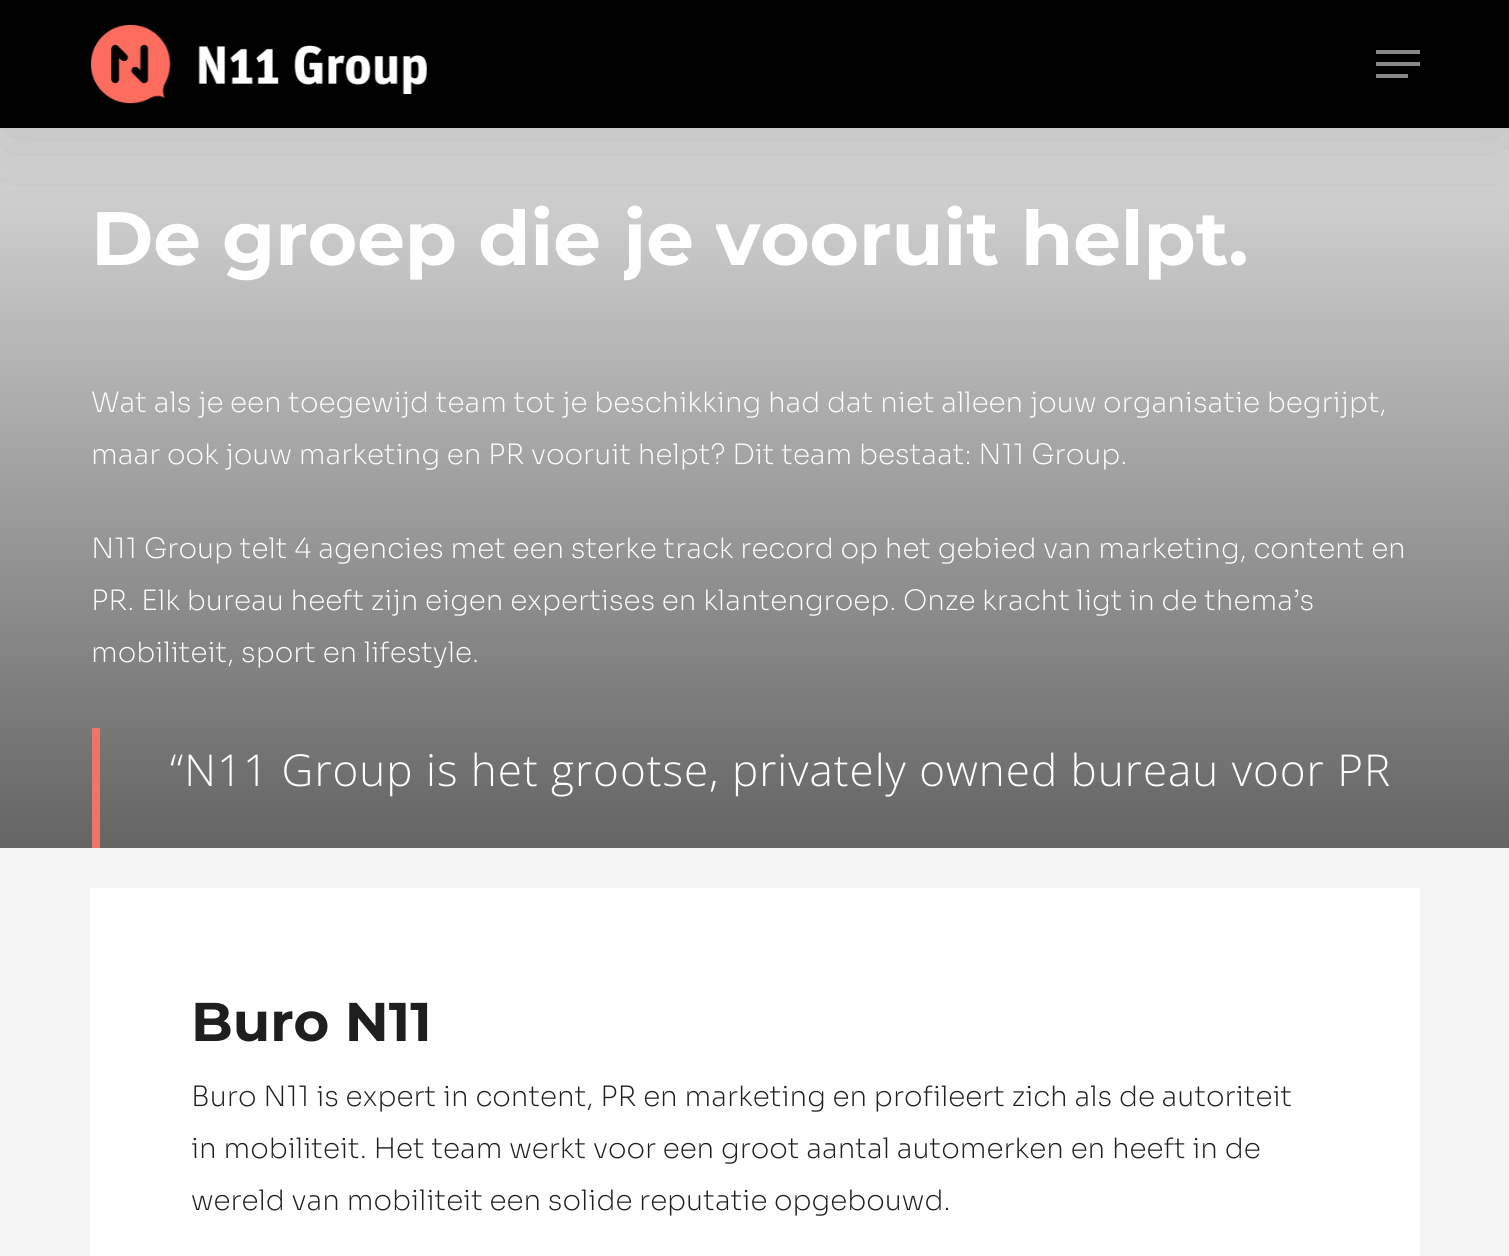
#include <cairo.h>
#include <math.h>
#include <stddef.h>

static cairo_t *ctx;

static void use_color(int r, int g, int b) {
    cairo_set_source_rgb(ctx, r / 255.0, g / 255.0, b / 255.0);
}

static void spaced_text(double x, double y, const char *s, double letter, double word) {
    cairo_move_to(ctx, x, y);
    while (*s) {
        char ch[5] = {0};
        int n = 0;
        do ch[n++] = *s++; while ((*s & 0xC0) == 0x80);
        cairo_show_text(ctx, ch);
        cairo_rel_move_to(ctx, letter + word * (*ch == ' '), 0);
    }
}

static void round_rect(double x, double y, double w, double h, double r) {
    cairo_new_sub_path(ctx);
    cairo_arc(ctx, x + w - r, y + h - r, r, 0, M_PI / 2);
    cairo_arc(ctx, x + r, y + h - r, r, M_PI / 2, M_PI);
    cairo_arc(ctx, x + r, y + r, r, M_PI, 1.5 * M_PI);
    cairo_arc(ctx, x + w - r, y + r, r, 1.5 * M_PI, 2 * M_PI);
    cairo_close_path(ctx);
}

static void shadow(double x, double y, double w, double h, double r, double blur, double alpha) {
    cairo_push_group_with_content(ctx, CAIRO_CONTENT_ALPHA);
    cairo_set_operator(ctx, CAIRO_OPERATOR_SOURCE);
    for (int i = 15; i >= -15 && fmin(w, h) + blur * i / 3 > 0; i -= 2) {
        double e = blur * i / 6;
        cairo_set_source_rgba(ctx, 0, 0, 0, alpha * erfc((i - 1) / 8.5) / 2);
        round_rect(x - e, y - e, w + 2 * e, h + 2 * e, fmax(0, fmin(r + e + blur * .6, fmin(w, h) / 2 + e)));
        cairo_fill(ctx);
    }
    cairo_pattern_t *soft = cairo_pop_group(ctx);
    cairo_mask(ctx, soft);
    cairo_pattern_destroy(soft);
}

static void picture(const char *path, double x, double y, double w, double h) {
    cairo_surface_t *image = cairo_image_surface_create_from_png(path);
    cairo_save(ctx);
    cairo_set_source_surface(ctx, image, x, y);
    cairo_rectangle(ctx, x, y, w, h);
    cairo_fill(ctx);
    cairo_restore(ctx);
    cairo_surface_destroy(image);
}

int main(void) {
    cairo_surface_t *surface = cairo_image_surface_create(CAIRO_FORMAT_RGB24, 1509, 1256);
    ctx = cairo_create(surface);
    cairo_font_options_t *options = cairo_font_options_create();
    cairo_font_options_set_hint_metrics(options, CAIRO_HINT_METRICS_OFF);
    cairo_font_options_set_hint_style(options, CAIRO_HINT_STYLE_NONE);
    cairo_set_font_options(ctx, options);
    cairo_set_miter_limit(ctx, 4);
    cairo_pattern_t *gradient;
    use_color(255, 255, 255);
    cairo_paint(ctx);
    gradient = cairo_pattern_create_linear(755, -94, 755, 1148);
    cairo_pattern_add_color_stop_rgba(gradient, 0, 0.996, 0.996, 0.996, 1);
    cairo_pattern_add_color_stop_rgba(gradient, 1, 0.2, 0.2, 0.2, 1);
    cairo_set_source(ctx, gradient);
    cairo_pattern_destroy(gradient);
    cairo_rectangle(ctx, 0, 128, 1509, 720);
    cairo_fill(ctx);
    use_color(0, 0, 0);
    shadow(0, 6, 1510, 128, 0, 45, 0.15);
    use_color(0, 0, 0);
    cairo_rectangle(ctx, 0, 0, 1509, 128);
    cairo_fill(ctx);
    picture("img1.png", 90, 24, 337, 80);
    use_color(136, 136, 136);
    cairo_rectangle(ctx, 1376, 50, 44, 4);
    cairo_fill(ctx);
    cairo_rectangle(ctx, 1376, 74, 32, 4);
    cairo_fill(ctx);
    cairo_rectangle(ctx, 1376, 62, 44, 4);
    cairo_fill(ctx);
    cairo_select_font_face(ctx, "Montserrat Thin", CAIRO_FONT_SLANT_NORMAL, CAIRO_FONT_WEIGHT_NORMAL);
    cairo_set_font_size(ctx, 75.5);
    use_color(255, 255, 255);
    cairo_move_to(ctx, 91, 265);
    cairo_show_text(ctx, "De groep die");
    cairo_save(ctx);
    cairo_rectangle(ctx, 624, 192, 70, 92);
    cairo_clip(ctx);
    cairo_move_to(ctx, 623, 265);
    cairo_show_text(ctx, "je");
    cairo_restore(ctx);
    cairo_save(ctx);
    cairo_rectangle(ctx, 716, 192, 284, 92);
    cairo_clip(ctx);
    cairo_move_to(ctx, 715, 265);
    cairo_show_text(ctx, "vooruit");
    cairo_restore(ctx);
    cairo_move_to(ctx, 1021, 265);
    cairo_show_text(ctx, "helpt.");
    cairo_select_font_face(ctx, "Sora ExtraLight", CAIRO_FONT_SLANT_NORMAL, CAIRO_FONT_WEIGHT_NORMAL);
    cairo_set_font_size(ctx, 28);
    cairo_move_to(ctx, 91, 412);
    cairo_show_text(ctx, "Wat als je een toegewijd team tot je beschikking had dat niet alleen jouw organisatie begrijpt,");
    cairo_move_to(ctx, 91, 464);
    cairo_show_text(ctx, "maar ook jouw marketing en PR vooruit helpt? Dit team bestaat: N11 Group.");
    cairo_move_to(ctx, 91, 558);
    cairo_show_text(ctx, "N11 Group telt 4 agencies met een sterke track record op het gebied van marketing, content en");
    cairo_move_to(ctx, 91, 610);
    cairo_show_text(ctx, "PR. Elk bureau heeft zijn eigen expertises en klantengroep. Onze kracht ligt in de thema’s");
    cairo_move_to(ctx, 91, 662);
    cairo_show_text(ctx, "mobiliteit, sport en lifestyle.");
    use_color(235, 117, 102);
    cairo_rectangle(ctx, 92, 728, 8, 120);
    cairo_fill(ctx);
    cairo_select_font_face(ctx, "Open Sans Light", CAIRO_FONT_SLANT_NORMAL, CAIRO_FONT_WEIGHT_NORMAL);
    cairo_set_font_size(ctx, 44);
    use_color(255, 255, 255);
    spaced_text(170, 786, "“N11 Group is het grootse, privately owned bureau voor PR", 1, 0);
    use_color(245, 245, 245);
    cairo_rectangle(ctx, 0, 848, 1509, 408);
    cairo_fill(ctx);
    use_color(255, 255, 255);
    cairo_rectangle(ctx, 90, 888, 1330, 368);
    cairo_fill(ctx);
    cairo_select_font_face(ctx, "Montserrat Thin", CAIRO_FONT_SLANT_NORMAL, CAIRO_FONT_WEIGHT_NORMAL);
    cairo_set_font_size(ctx, 54.5);
    use_color(30, 30, 30);
    cairo_move_to(ctx, 191, 1041);
    cairo_show_text(ctx, "Buro N11");
    cairo_select_font_face(ctx, "Sora ExtraLight", CAIRO_FONT_SLANT_NORMAL, CAIRO_FONT_WEIGHT_NORMAL);
    cairo_set_font_size(ctx, 28);
    cairo_move_to(ctx, 191, 1106);
    cairo_show_text(ctx, "Buro N11 is expert in content, PR en marketing en profileert zich als de autoriteit");
    cairo_move_to(ctx, 191, 1158);
    cairo_show_text(ctx, "in mobiliteit. Het team werkt voor een groot aantal automerken en heeft in de");
    cairo_move_to(ctx, 191, 1210);
    cairo_show_text(ctx, "wereld van mobiliteit een solide reputatie opgebouwd.");
    cairo_surface_write_to_png(surface, "result.png");
    cairo_font_options_destroy(options);
    cairo_destroy(ctx);
    cairo_surface_destroy(surface);
    return 0;
}
